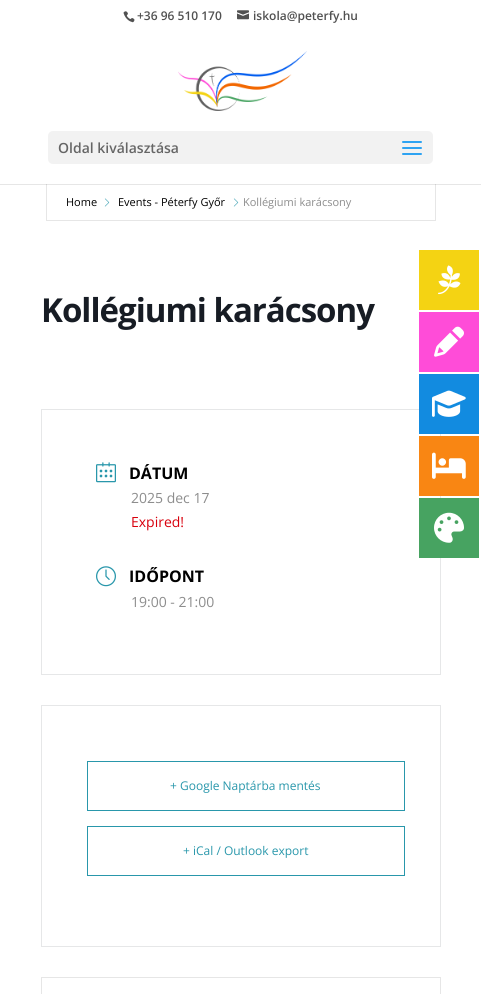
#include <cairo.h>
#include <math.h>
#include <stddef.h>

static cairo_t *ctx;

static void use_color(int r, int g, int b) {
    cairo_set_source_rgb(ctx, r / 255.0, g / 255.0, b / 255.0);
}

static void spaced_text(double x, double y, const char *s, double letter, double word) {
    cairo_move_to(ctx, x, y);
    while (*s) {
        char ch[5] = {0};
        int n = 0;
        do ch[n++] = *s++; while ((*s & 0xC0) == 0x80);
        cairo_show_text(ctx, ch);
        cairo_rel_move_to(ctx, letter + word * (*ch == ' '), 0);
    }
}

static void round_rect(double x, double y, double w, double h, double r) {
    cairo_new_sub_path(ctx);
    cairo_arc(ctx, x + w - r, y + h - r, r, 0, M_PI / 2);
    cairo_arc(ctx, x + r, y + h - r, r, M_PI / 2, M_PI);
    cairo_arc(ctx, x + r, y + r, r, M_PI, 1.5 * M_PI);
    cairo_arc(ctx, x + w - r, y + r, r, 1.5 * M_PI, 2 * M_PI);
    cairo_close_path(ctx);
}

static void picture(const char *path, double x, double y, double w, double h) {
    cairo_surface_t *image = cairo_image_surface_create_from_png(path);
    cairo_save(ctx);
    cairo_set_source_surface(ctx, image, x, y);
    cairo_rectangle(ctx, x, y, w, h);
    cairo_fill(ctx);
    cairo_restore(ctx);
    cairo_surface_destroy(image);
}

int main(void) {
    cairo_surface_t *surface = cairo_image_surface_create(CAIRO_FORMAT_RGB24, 481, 994);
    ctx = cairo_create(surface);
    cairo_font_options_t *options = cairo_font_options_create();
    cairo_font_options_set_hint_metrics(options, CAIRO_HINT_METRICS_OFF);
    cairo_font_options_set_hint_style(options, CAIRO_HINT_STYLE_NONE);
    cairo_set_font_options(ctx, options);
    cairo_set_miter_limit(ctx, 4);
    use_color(255, 255, 255);
    cairo_paint(ctx);
    picture("img1.png", 123, 11, 12, 12);
    cairo_select_font_face(ctx, "Open Sans SemiBold", CAIRO_FONT_SLANT_NORMAL, CAIRO_FONT_WEIGHT_NORMAL);
    cairo_set_font_size(ctx, 12);
    use_color(81, 81, 81);
    cairo_move_to(ctx, 137, 20);
    cairo_show_text(ctx, "+36 96 510 170");
    picture("img2.png", 237, 10, 12, 10);
    cairo_move_to(ctx, 253, 20);
    cairo_show_text(ctx, "iskola@peterfy.hu");
    cairo_rectangle(ctx, 46.5, 183.5, 389, 37);
    use_color(230, 230, 230);
    cairo_set_line_width(ctx, 1);
    cairo_stroke(ctx);
    cairo_set_source_rgba(ctx, 0, 0, 0, 0.1);
    cairo_rectangle(ctx, 0, 184, 481, 1);
    cairo_fill(ctx);
    use_color(255, 255, 255);
    cairo_rectangle(ctx, 46, 183, 390, 1);
    cairo_fill(ctx);
    picture("img3.png", 178, 51, 129, 60);
    use_color(242, 242, 242);
    round_rect(48, 131, 385, 33, 5);
    cairo_fill(ctx);
    cairo_set_font_size(ctx, 14);
    use_color(102, 102, 102);
    cairo_move_to(ctx, 58, 153);
    cairo_show_text(ctx, "Oldal kiválasztása");
    picture("img4.png", 402, 141, 20, 14);
    cairo_select_font_face(ctx, "Open Sans", CAIRO_FONT_SLANT_NORMAL, CAIRO_FONT_WEIGHT_NORMAL);
    cairo_set_font_size(ctx, 11);
    use_color(0, 0, 0);
    cairo_move_to(ctx, 66, 206);
    cairo_show_text(ctx, "Home");
    picture("img5.png", 104, 198, 6, 9);
    cairo_move_to(ctx, 118, 206);
    cairo_show_text(ctx, "Events - Péterfy Győr");
    picture("img5.png", 233, 198, 6, 9);
    use_color(141, 141, 141);
    cairo_move_to(ctx, 243, 206);
    cairo_show_text(ctx, "Kollégiumi karácsony");
    cairo_select_font_face(ctx, "Open Sans", CAIRO_FONT_SLANT_NORMAL, CAIRO_FONT_WEIGHT_BOLD);
    cairo_set_font_size(ctx, 33);
    use_color(23, 28, 36);
    spaced_text(41, 322, "Kollégiumi karácsony", -1, 0);
    cairo_rectangle(ctx, 41.5, 409.5, 399, 265);
    use_color(230, 231, 232);
    cairo_stroke(ctx);
    picture("img6.png", 96, 462, 20, 21);
    cairo_set_font_size(ctx, 16);
    use_color(0, 0, 0);
    cairo_move_to(ctx, 129, 479);
    cairo_show_text(ctx, "DÁTUM");
    cairo_select_font_face(ctx, "Open Sans", CAIRO_FONT_SLANT_NORMAL, CAIRO_FONT_WEIGHT_NORMAL);
    cairo_set_font_size(ctx, 14);
    use_color(141, 141, 141);
    cairo_move_to(ctx, 131, 503);
    cairo_show_text(ctx, "2025 dec 17");
    use_color(216, 0, 12);
    cairo_move_to(ctx, 131, 527);
    cairo_show_text(ctx, "Expired!");
    picture("img7.png", 96, 566, 20, 21);
    cairo_select_font_face(ctx, "Open Sans", CAIRO_FONT_SLANT_NORMAL, CAIRO_FONT_WEIGHT_BOLD);
    cairo_set_font_size(ctx, 16);
    use_color(0, 0, 0);
    cairo_move_to(ctx, 129, 582);
    cairo_show_text(ctx, "IDŐPONT");
    cairo_select_font_face(ctx, "Open Sans", CAIRO_FONT_SLANT_NORMAL, CAIRO_FONT_WEIGHT_NORMAL);
    cairo_set_font_size(ctx, 14);
    use_color(141, 141, 141);
    cairo_move_to(ctx, 131, 607);
    cairo_show_text(ctx, "19:00 - 21:00");
    cairo_rectangle(ctx, 41.5, 705.5, 399, 241);
    use_color(230, 231, 232);
    cairo_stroke(ctx);
    cairo_rectangle(ctx, 87.5, 761.5, 317, 49);
    use_color(41, 151, 171);
    cairo_stroke(ctx);
    cairo_set_font_size(ctx, 12);
    cairo_move_to(ctx, 170, 790);
    cairo_show_text(ctx, "+ Google Naptárba mentés");
    cairo_rectangle(ctx, 87.5, 826.5, 317, 49);
    cairo_stroke(ctx);
    cairo_move_to(ctx, 183, 855);
    cairo_show_text(ctx, "+ iCal / Outlook export");
    cairo_rectangle(ctx, 41.5, 977.5, 399, 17);
    use_color(230, 230, 230);
    cairo_stroke(ctx);
    use_color(244, 211, 19);
    cairo_rectangle(ctx, 419, 250, 60, 60);
    cairo_fill(ctx);
    picture("img8.png", 438, 265, 23, 30);
    use_color(255, 76, 216);
    cairo_rectangle(ctx, 419, 312, 60, 60);
    cairo_fill(ctx);
    picture("img9.png", 434, 326, 30, 31);
    use_color(18, 139, 224);
    cairo_rectangle(ctx, 419, 374, 60, 60);
    cairo_fill(ctx);
    picture("img10.png", 432, 390, 34, 27);
    use_color(249, 134, 19);
    cairo_rectangle(ctx, 419, 436, 60, 60);
    cairo_fill(ctx);
    picture("img11.png", 432, 452, 34, 27);
    use_color(71, 163, 97);
    cairo_rectangle(ctx, 419, 498, 60, 60);
    cairo_fill(ctx);
    picture("img12.png", 434, 512, 30, 31);
    cairo_surface_write_to_png(surface, "result.png");
    cairo_font_options_destroy(options);
    cairo_destroy(ctx);
    cairo_surface_destroy(surface);
    return 0;
}
